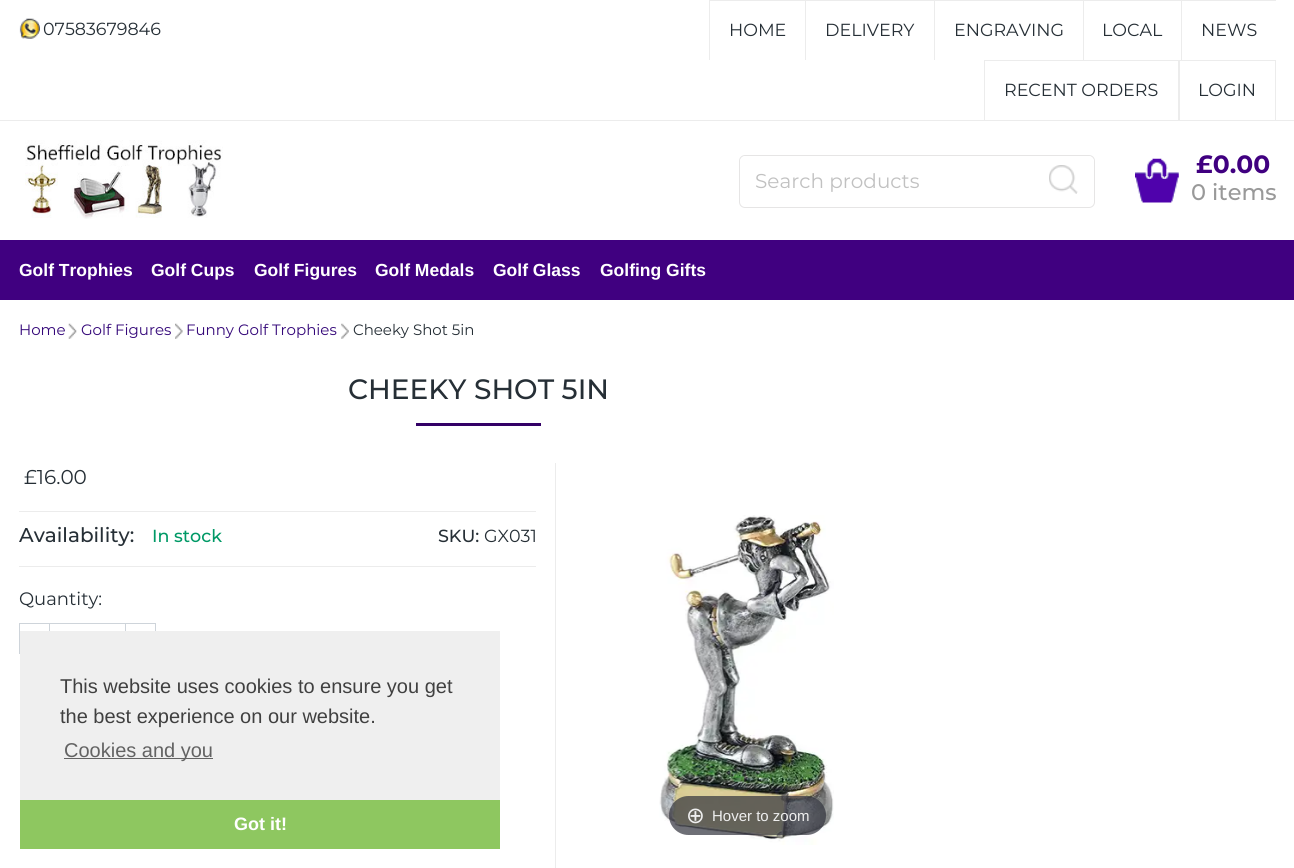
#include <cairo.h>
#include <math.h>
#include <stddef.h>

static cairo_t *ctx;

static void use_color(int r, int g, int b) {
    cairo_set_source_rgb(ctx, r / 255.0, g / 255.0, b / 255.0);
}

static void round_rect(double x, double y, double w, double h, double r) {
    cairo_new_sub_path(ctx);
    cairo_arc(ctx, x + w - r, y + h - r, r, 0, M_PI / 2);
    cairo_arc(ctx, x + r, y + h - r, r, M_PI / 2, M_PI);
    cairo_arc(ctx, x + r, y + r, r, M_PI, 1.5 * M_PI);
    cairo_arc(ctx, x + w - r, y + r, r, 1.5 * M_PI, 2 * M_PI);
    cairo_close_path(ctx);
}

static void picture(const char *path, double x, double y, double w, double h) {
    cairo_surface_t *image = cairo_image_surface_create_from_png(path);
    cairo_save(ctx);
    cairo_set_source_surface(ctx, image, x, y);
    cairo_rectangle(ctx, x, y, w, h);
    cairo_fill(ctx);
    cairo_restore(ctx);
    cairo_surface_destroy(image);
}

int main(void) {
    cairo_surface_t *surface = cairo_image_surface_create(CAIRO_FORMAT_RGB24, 1294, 868);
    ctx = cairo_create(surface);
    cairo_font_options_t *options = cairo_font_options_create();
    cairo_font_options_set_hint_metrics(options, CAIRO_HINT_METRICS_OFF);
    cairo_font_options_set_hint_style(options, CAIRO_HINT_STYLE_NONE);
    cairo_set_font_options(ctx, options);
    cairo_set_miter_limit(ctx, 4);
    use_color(255, 255, 255);
    cairo_paint(ctx);
    use_color(236, 236, 236);
    cairo_rectangle(ctx, 0, 120, 1294, 1);
    cairo_fill(ctx);
    picture("img1.png", 19, 18, 21, 21);
    cairo_select_font_face(ctx, "Montserrat", CAIRO_FONT_SLANT_NORMAL, CAIRO_FONT_WEIGHT_NORMAL);
    cairo_set_font_size(ctx, 17.5);
    use_color(38, 47, 54);
    cairo_move_to(ctx, 43, 35);
    cairo_show_text(ctx, "07583679846");
    use_color(236, 236, 236);
    cairo_rectangle(ctx, 709, 0, 567, 1);
    cairo_fill(ctx);
    cairo_rectangle(ctx, 709, 0, 1, 60);
    cairo_fill(ctx);
    use_color(38, 47, 54);
    cairo_move_to(ctx, 729, 36);
    cairo_show_text(ctx, "HOME");
    use_color(236, 236, 236);
    cairo_rectangle(ctx, 805, 0, 1, 60);
    cairo_fill(ctx);
    use_color(38, 47, 54);
    cairo_move_to(ctx, 825, 36);
    cairo_show_text(ctx, "DELIVERY");
    use_color(236, 236, 236);
    cairo_rectangle(ctx, 934, 0, 1, 60);
    cairo_fill(ctx);
    use_color(38, 47, 54);
    cairo_move_to(ctx, 954, 36);
    cairo_show_text(ctx, "ENGRAVING");
    use_color(236, 236, 236);
    cairo_rectangle(ctx, 1083, 0, 1, 60);
    cairo_fill(ctx);
    use_color(38, 47, 54);
    cairo_move_to(ctx, 1102, 36);
    cairo_show_text(ctx, "LOCAL");
    use_color(236, 236, 236);
    cairo_rectangle(ctx, 1181, 0, 1, 60);
    cairo_fill(ctx);
    use_color(38, 47, 54);
    cairo_move_to(ctx, 1201, 36);
    cairo_show_text(ctx, "NEWS");
    use_color(236, 236, 236);
    cairo_rectangle(ctx, 984, 60, 292, 1);
    cairo_fill(ctx);
    cairo_rectangle(ctx, 1178, 60, 2, 60);
    cairo_fill(ctx);
    cairo_rectangle(ctx, 984, 60, 1, 60);
    cairo_fill(ctx);
    use_color(38, 47, 54);
    cairo_move_to(ctx, 1004, 96);
    cairo_show_text(ctx, "RECENT ORDERS");
    use_color(236, 236, 236);
    cairo_rectangle(ctx, 1275, 60, 1, 60);
    cairo_fill(ctx);
    use_color(38, 47, 54);
    cairo_move_to(ctx, 1198, 96);
    cairo_show_text(ctx, "LOGIN");
    picture("img2.png", 25, 140, 198, 79);
    round_rect(739.5, 155.5, 355, 52, 5.5);
    use_color(230, 229, 229);
    cairo_set_line_width(ctx, 1);
    cairo_stroke(ctx);
    use_color(255, 255, 255);
    round_rect(740, 156, 294, 50, 6);
    cairo_fill(ctx);
    cairo_set_font_size(ctx, 20);
    use_color(193, 193, 193);
    cairo_move_to(ctx, 755, 188);
    cairo_show_text(ctx, "Search products");
    use_color(255, 255, 255);
    round_rect(1034, 156, 60, 48, 6);
    cairo_fill(ctx);
    picture("img3.png", 1049, 165, 29, 29);
    picture("img4.png", 1135, 158, 44, 45);
    cairo_select_font_face(ctx, "Montserrat", CAIRO_FONT_SLANT_NORMAL, CAIRO_FONT_WEIGHT_BOLD);
    cairo_set_font_size(ctx, 25);
    use_color(64, 0, 128);
    cairo_move_to(ctx, 1196, 173);
    cairo_show_text(ctx, "£0.00");
    cairo_select_font_face(ctx, "Montserrat Medium", CAIRO_FONT_SLANT_NORMAL, CAIRO_FONT_WEIGHT_NORMAL);
    cairo_set_font_size(ctx, 22.5);
    use_color(153, 153, 153);
    cairo_move_to(ctx, 1191, 200);
    cairo_show_text(ctx, "0 items");
    use_color(64, 0, 128);
    cairo_rectangle(ctx, 0, 240, 1294, 60);
    cairo_fill(ctx);
    cairo_select_font_face(ctx, "Liberation Sans", CAIRO_FONT_SLANT_NORMAL, CAIRO_FONT_WEIGHT_BOLD);
    cairo_set_font_size(ctx, 17.5);
    use_color(255, 255, 255);
    cairo_move_to(ctx, 19, 276);
    cairo_show_text(ctx, "Golf Trophies");
    cairo_move_to(ctx, 151, 276);
    cairo_show_text(ctx, "Golf Cups");
    cairo_move_to(ctx, 254, 276);
    cairo_show_text(ctx, "Golf Figures");
    cairo_move_to(ctx, 375, 276);
    cairo_show_text(ctx, "Golf Medals");
    cairo_move_to(ctx, 493, 276);
    cairo_show_text(ctx, "Golf Glass");
    cairo_move_to(ctx, 600, 276);
    cairo_show_text(ctx, "Golfing Gifts");
    cairo_select_font_face(ctx, "Montserrat", CAIRO_FONT_SLANT_NORMAL, CAIRO_FONT_WEIGHT_NORMAL);
    cairo_set_font_size(ctx, 15);
    use_color(52, 7, 121);
    cairo_move_to(ctx, 19, 335);
    cairo_show_text(ctx, "Home");
    picture("img5.png", 68, 323, 9, 16);
    cairo_move_to(ctx, 81, 335);
    cairo_show_text(ctx, "Golf Figures");
    picture("img6.png", 175, 323, 8, 16);
    cairo_move_to(ctx, 186, 335);
    cairo_show_text(ctx, "Funny Golf Trophies");
    picture("img7.png", 341, 323, 8, 16);
    use_color(38, 47, 54);
    cairo_move_to(ctx, 353, 335);
    cairo_show_text(ctx, "Cheeky Shot 5in");
    cairo_select_font_face(ctx, "Montserrat Medium", CAIRO_FONT_SLANT_NORMAL, CAIRO_FONT_WEIGHT_NORMAL);
    cairo_set_font_size(ctx, 28);
    cairo_move_to(ctx, 348, 399);
    cairo_show_text(ctx, "CHEEKY SHOT 5IN");
    use_color(51, 0, 102);
    cairo_rectangle(ctx, 416, 423, 125, 3);
    cairo_fill(ctx);
    cairo_select_font_face(ctx, "Montserrat", CAIRO_FONT_SLANT_NORMAL, CAIRO_FONT_WEIGHT_NORMAL);
    cairo_set_font_size(ctx, 20);
    use_color(38, 47, 54);
    cairo_move_to(ctx, 24, 484);
    cairo_show_text(ctx, "£16.00");
    use_color(236, 236, 236);
    cairo_rectangle(ctx, 19, 511, 517, 1);
    cairo_fill(ctx);
    cairo_rectangle(ctx, 19, 566, 517, 1);
    cairo_fill(ctx);
    cairo_select_font_face(ctx, "Montserrat Medium", CAIRO_FONT_SLANT_NORMAL, CAIRO_FONT_WEIGHT_NORMAL);
    use_color(38, 47, 54);
    cairo_move_to(ctx, 19, 542);
    cairo_show_text(ctx, "Availability:");
    cairo_set_font_size(ctx, 17.5);
    use_color(0, 153, 102);
    cairo_move_to(ctx, 152, 542);
    cairo_show_text(ctx, "In stock");
    use_color(38, 47, 54);
    cairo_move_to(ctx, 438, 542);
    cairo_show_text(ctx, "SKU:");
    cairo_select_font_face(ctx, "Montserrat", CAIRO_FONT_SLANT_NORMAL, CAIRO_FONT_WEIGHT_NORMAL);
    cairo_move_to(ctx, 484, 542);
    cairo_show_text(ctx, "GX031");
    cairo_set_font_size(ctx, 18);
    cairo_move_to(ctx, 19, 605);
    cairo_show_text(ctx, "Quantity:");
    cairo_rectangle(ctx, 19.5, 623.5, 30, 30);
    use_color(206, 212, 218);
    cairo_stroke(ctx);
    cairo_rectangle(ctx, 50, 623, 75, 1);
    cairo_fill(ctx);
    cairo_rectangle(ctx, 125.5, 623.5, 30, 30);
    cairo_stroke(ctx);
    use_color(236, 236, 236);
    cairo_rectangle(ctx, 555, 463, 1, 405);
    cairo_fill(ctx);
    picture("img8.png", 659, 515, 175, 330);
    cairo_set_source_rgba(ctx, 0.192, 0.2, 0.239, 0.7);
    round_rect(669, 796, 157, 39, 19.5);
    cairo_fill(ctx);
    cairo_select_font_face(ctx, "DejaVu Sans", CAIRO_FONT_SLANT_NORMAL, CAIRO_FONT_WEIGHT_NORMAL);
    cairo_set_font_size(ctx, 22.5);
    use_color(238, 238, 238);
    cairo_move_to(ctx, 686, 823);
    cairo_show_text(ctx, "⊕");
    cairo_select_font_face(ctx, "Liberation Sans", CAIRO_FONT_SLANT_NORMAL, CAIRO_FONT_WEIGHT_NORMAL);
    cairo_set_font_size(ctx, 15);
    cairo_move_to(ctx, 712, 821);
    cairo_show_text(ctx, "Hover to zoom");
    use_color(239, 239, 239);
    cairo_rectangle(ctx, 20, 631, 480, 169);
    cairo_fill(ctx);
    cairo_set_font_size(ctx, 20);
    use_color(64, 64, 64);
    cairo_move_to(ctx, 60, 693);
    cairo_show_text(ctx, "This website uses cookies to ensure you get");
    cairo_move_to(ctx, 60, 723);
    cairo_show_text(ctx, "the best experience on our website.");
    use_color(99, 99, 99);
    cairo_rectangle(ctx, 64, 758, 149, 1);
    cairo_fill(ctx);
    cairo_move_to(ctx, 64, 757);
    cairo_show_text(ctx, "Cookies and you");
    use_color(142, 199, 96);
    cairo_rectangle(ctx, 20, 800, 480, 49);
    cairo_fill(ctx);
    cairo_select_font_face(ctx, "Liberation Sans", CAIRO_FONT_SLANT_NORMAL, CAIRO_FONT_WEIGHT_BOLD);
    cairo_set_font_size(ctx, 18);
    use_color(255, 255, 255);
    cairo_move_to(ctx, 234, 830);
    cairo_show_text(ctx, "Got it!");
    cairo_surface_write_to_png(surface, "result.png");
    cairo_font_options_destroy(options);
    cairo_destroy(ctx);
    cairo_surface_destroy(surface);
    return 0;
}
